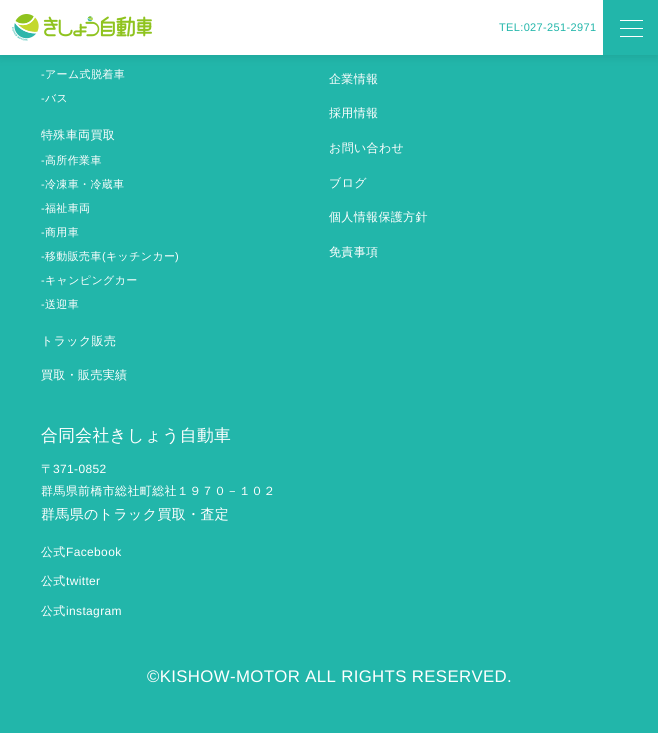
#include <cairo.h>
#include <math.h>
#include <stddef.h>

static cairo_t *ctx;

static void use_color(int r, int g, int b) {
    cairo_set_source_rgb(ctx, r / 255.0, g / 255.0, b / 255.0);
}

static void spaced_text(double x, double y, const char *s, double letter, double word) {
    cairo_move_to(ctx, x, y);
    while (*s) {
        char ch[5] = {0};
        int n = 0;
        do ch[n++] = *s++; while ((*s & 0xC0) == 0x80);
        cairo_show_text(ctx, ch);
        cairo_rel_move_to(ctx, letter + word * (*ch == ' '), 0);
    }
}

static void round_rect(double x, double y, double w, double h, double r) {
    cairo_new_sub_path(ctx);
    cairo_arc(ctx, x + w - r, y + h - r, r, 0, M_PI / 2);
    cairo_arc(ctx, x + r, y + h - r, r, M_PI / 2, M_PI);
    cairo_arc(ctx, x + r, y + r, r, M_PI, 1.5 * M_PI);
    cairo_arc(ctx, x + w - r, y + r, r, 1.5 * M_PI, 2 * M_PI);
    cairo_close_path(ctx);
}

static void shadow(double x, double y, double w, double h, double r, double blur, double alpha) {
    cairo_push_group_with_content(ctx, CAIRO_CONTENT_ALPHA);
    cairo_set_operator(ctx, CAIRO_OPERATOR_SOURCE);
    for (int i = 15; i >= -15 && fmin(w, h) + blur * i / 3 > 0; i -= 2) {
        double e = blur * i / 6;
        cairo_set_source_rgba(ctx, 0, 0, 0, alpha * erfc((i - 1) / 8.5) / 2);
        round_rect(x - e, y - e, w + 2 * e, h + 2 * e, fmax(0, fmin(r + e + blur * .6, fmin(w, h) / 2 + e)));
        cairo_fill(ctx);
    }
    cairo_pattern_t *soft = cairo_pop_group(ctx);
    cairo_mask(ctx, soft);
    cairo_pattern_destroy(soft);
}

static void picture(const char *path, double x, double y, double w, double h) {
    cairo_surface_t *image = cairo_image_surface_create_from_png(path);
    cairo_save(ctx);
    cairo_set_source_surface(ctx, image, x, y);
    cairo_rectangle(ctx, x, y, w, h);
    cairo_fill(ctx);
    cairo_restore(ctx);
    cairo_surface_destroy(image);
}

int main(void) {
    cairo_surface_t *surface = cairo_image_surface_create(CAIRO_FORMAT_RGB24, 658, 733);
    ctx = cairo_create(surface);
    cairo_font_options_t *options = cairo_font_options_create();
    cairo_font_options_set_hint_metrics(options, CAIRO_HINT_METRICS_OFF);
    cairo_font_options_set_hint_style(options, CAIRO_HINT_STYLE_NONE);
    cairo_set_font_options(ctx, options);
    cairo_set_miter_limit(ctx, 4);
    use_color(34, 182, 170);
    cairo_paint(ctx);
    use_color(0, 0, 0);
    shadow(0, 2, 658, 55, 0, 5, 0.1);
    use_color(255, 255, 255);
    cairo_rectangle(ctx, 0, 0, 603, 55);
    cairo_fill(ctx);
    picture("img1.png", 12, 14, 140, 27);
    cairo_select_font_face(ctx, "Liberation Sans", CAIRO_FONT_SLANT_NORMAL, CAIRO_FONT_WEIGHT_NORMAL);
    cairo_set_font_size(ctx, 11);
    use_color(34, 182, 170);
    spaced_text(499, 31, "TEL:027-251-2971", 0.35, 0);
    cairo_rectangle(ctx, 603, 0, 55, 55);
    cairo_fill(ctx);
    use_color(255, 255, 255);
    cairo_rectangle(ctx, 620, 28, 23, 1);
    cairo_fill(ctx);
    cairo_rectangle(ctx, 620, 20, 23, 1);
    cairo_fill(ctx);
    cairo_rectangle(ctx, 620, 36, 23, 1);
    cairo_fill(ctx);
    spaced_text(41, 78, "-", 0.35, 0);
    cairo_select_font_face(ctx, "WenQuanYi Zen Hei Medium", CAIRO_FONT_SLANT_NORMAL, CAIRO_FONT_WEIGHT_NORMAL);
    spaced_text(45, 78, "アーム式脱着車", 0.35, 0);
    cairo_select_font_face(ctx, "Liberation Sans", CAIRO_FONT_SLANT_NORMAL, CAIRO_FONT_WEIGHT_NORMAL);
    spaced_text(41, 102, "-", 0.35, 0);
    cairo_select_font_face(ctx, "WenQuanYi Zen Hei Medium", CAIRO_FONT_SLANT_NORMAL, CAIRO_FONT_WEIGHT_NORMAL);
    spaced_text(45, 102, "バス", 0.35, 0);
    cairo_set_font_size(ctx, 12);
    spaced_text(41, 139, "特殊車両買取", 0.35, 0);
    cairo_select_font_face(ctx, "Liberation Sans", CAIRO_FONT_SLANT_NORMAL, CAIRO_FONT_WEIGHT_NORMAL);
    cairo_set_font_size(ctx, 11);
    spaced_text(41, 164, "-", 0.35, 0);
    cairo_select_font_face(ctx, "WenQuanYi Zen Hei Medium", CAIRO_FONT_SLANT_NORMAL, CAIRO_FONT_WEIGHT_NORMAL);
    spaced_text(45, 164, "高所作業車", 0.35, 0);
    cairo_select_font_face(ctx, "Liberation Sans", CAIRO_FONT_SLANT_NORMAL, CAIRO_FONT_WEIGHT_NORMAL);
    spaced_text(41, 188, "-", 0.35, 0);
    cairo_select_font_face(ctx, "WenQuanYi Zen Hei Medium", CAIRO_FONT_SLANT_NORMAL, CAIRO_FONT_WEIGHT_NORMAL);
    spaced_text(45, 188, "冷凍車・冷蔵車", 0.35, 0);
    cairo_select_font_face(ctx, "Liberation Sans", CAIRO_FONT_SLANT_NORMAL, CAIRO_FONT_WEIGHT_NORMAL);
    spaced_text(41, 212, "-", 0.35, 0);
    cairo_select_font_face(ctx, "WenQuanYi Zen Hei Medium", CAIRO_FONT_SLANT_NORMAL, CAIRO_FONT_WEIGHT_NORMAL);
    spaced_text(45, 212, "福祉車両", 0.35, 0);
    cairo_select_font_face(ctx, "Liberation Sans", CAIRO_FONT_SLANT_NORMAL, CAIRO_FONT_WEIGHT_NORMAL);
    spaced_text(41, 236, "-", 0.35, 0);
    cairo_select_font_face(ctx, "WenQuanYi Zen Hei Medium", CAIRO_FONT_SLANT_NORMAL, CAIRO_FONT_WEIGHT_NORMAL);
    spaced_text(45, 236, "商用車", 0.35, 0);
    cairo_select_font_face(ctx, "Liberation Sans", CAIRO_FONT_SLANT_NORMAL, CAIRO_FONT_WEIGHT_NORMAL);
    spaced_text(41, 260, "-", 0.35, 0);
    cairo_select_font_face(ctx, "WenQuanYi Zen Hei Medium", CAIRO_FONT_SLANT_NORMAL, CAIRO_FONT_WEIGHT_NORMAL);
    spaced_text(45, 260, "移動販売車", 0.35, 0);
    cairo_select_font_face(ctx, "Liberation Sans", CAIRO_FONT_SLANT_NORMAL, CAIRO_FONT_WEIGHT_NORMAL);
    spaced_text(102, 260, "(", 0.35, 0);
    cairo_select_font_face(ctx, "WenQuanYi Zen Hei Medium", CAIRO_FONT_SLANT_NORMAL, CAIRO_FONT_WEIGHT_NORMAL);
    spaced_text(106, 260, "キッチンカー", 0.35, 0);
    cairo_select_font_face(ctx, "Liberation Sans", CAIRO_FONT_SLANT_NORMAL, CAIRO_FONT_WEIGHT_NORMAL);
    spaced_text(175, 260, ")", 0.35, 0);
    spaced_text(41, 284, "-", 0.35, 0);
    cairo_select_font_face(ctx, "WenQuanYi Zen Hei Medium", CAIRO_FONT_SLANT_NORMAL, CAIRO_FONT_WEIGHT_NORMAL);
    spaced_text(45, 284, "キャンピングカー", 0.35, 0);
    cairo_select_font_face(ctx, "Liberation Sans", CAIRO_FONT_SLANT_NORMAL, CAIRO_FONT_WEIGHT_NORMAL);
    spaced_text(41, 308, "-", 0.35, 0);
    cairo_select_font_face(ctx, "WenQuanYi Zen Hei Medium", CAIRO_FONT_SLANT_NORMAL, CAIRO_FONT_WEIGHT_NORMAL);
    spaced_text(45, 308, "送迎車", 0.35, 0);
    cairo_set_font_size(ctx, 12);
    spaced_text(41, 345, "トラック販売", 0.35, 0);
    spaced_text(41, 379, "買取・販売実績", 0.35, 0);
    spaced_text(329, 83, "企業情報", 0.35, 0);
    spaced_text(329, 117, "採用情報", 0.35, 0);
    spaced_text(329, 152, "お問い合わせ", 0.35, 0);
    spaced_text(329, 187, "ブログ", 0.35, 0);
    spaced_text(329, 221, "個人情報保護方針", 0.35, 0);
    spaced_text(329, 256, "免責事項", 0.35, 0);
    cairo_set_font_size(ctx, 16.8);
    spaced_text(41, 441, "合同会社きしょう自動車", 0.35, 0);
    cairo_set_font_size(ctx, 12);
    spaced_text(41, 473, "〒", 0.35, 0);
    cairo_select_font_face(ctx, "Liberation Sans", CAIRO_FONT_SLANT_NORMAL, CAIRO_FONT_WEIGHT_NORMAL);
    spaced_text(53, 473, "371-0852", 0.35, 0);
    cairo_select_font_face(ctx, "WenQuanYi Zen Hei Medium", CAIRO_FONT_SLANT_NORMAL, CAIRO_FONT_WEIGHT_NORMAL);
    spaced_text(41, 495, "群馬県前橋市総社町総社１９７０－１０２", 0.35, 0);
    cairo_set_font_size(ctx, 14);
    spaced_text(41, 519, "群馬県のトラック買取・査定", 0.35, 0);
    cairo_set_font_size(ctx, 12);
    spaced_text(41, 556, "公式", 0.35, 0);
    cairo_select_font_face(ctx, "Liberation Sans", CAIRO_FONT_SLANT_NORMAL, CAIRO_FONT_WEIGHT_NORMAL);
    spaced_text(66, 556, "Facebook", 0.35, 0);
    cairo_select_font_face(ctx, "WenQuanYi Zen Hei Medium", CAIRO_FONT_SLANT_NORMAL, CAIRO_FONT_WEIGHT_NORMAL);
    spaced_text(41, 585, "公式", 0.35, 0);
    cairo_select_font_face(ctx, "Liberation Sans", CAIRO_FONT_SLANT_NORMAL, CAIRO_FONT_WEIGHT_NORMAL);
    spaced_text(66, 585, "twitter", 0.35, 0);
    cairo_select_font_face(ctx, "WenQuanYi Zen Hei Medium", CAIRO_FONT_SLANT_NORMAL, CAIRO_FONT_WEIGHT_NORMAL);
    spaced_text(41, 615, "公式", 0.35, 0);
    cairo_select_font_face(ctx, "Liberation Sans", CAIRO_FONT_SLANT_NORMAL, CAIRO_FONT_WEIGHT_NORMAL);
    spaced_text(66, 615, "instagram", 0.35, 0);
    cairo_set_font_size(ctx, 16.8);
    spaced_text(147, 682, "©KISHOW-MOTOR ALL RIGHTS RESERVED.", 0.35, 0);
    cairo_surface_write_to_png(surface, "result.png");
    cairo_font_options_destroy(options);
    cairo_destroy(ctx);
    cairo_surface_destroy(surface);
    return 0;
}
